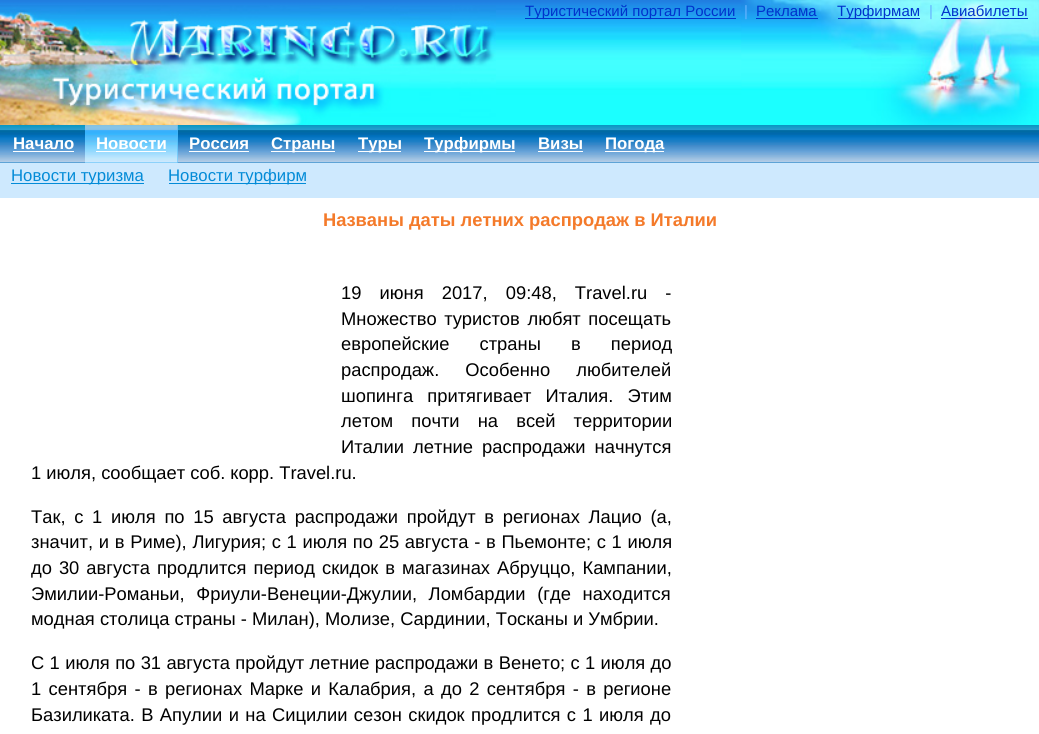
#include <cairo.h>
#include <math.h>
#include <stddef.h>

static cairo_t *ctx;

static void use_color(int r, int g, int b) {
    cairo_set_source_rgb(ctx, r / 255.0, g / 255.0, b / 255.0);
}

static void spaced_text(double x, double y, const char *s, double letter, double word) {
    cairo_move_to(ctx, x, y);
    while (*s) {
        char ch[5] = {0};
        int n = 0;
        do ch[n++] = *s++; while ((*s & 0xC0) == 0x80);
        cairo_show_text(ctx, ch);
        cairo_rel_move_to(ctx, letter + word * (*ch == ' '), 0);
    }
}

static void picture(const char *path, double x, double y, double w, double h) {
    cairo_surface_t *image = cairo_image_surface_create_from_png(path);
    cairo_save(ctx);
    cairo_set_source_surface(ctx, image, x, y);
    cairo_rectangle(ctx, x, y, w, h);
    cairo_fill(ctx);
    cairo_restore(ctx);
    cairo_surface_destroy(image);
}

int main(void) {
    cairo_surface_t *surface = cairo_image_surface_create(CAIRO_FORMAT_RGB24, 1039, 734);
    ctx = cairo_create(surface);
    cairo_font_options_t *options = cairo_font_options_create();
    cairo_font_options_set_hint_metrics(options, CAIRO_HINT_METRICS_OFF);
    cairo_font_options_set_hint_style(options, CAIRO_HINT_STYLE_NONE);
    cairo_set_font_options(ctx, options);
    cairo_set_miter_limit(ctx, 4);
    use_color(255, 255, 255);
    cairo_paint(ctx);
    picture("img1.png", 0, 0, 742, 125);
    picture("img2.png", 741, 0, 298, 125);
    picture("img3.png", 0, 5, 496, 120);
    use_color(0, 51, 204);
    cairo_rectangle(ctx, 525, 18, 211, 1);
    cairo_fill(ctx);
    cairo_select_font_face(ctx, "Liberation Sans", CAIRO_FONT_SLANT_NORMAL, CAIRO_FONT_WEIGHT_NORMAL);
    cairo_set_font_size(ctx, 15);
    cairo_move_to(ctx, 525, 16);
    cairo_show_text(ctx, "Туристический портал России");
    use_color(102, 179, 255);
    cairo_move_to(ctx, 744, 16);
    cairo_show_text(ctx, "|");
    use_color(0, 51, 204);
    cairo_move_to(ctx, 756, 16);
    cairo_show_text(ctx, "Реклама");
    cairo_rectangle(ctx, 756, 18, 62, 1);
    cairo_fill(ctx);
    cairo_rectangle(ctx, 838, 18, 82, 1);
    cairo_fill(ctx);
    cairo_move_to(ctx, 837, 16);
    cairo_show_text(ctx, "Турфирмам");
    use_color(102, 179, 255);
    cairo_move_to(ctx, 929, 16);
    cairo_show_text(ctx, "|");
    use_color(0, 51, 204);
    cairo_move_to(ctx, 941, 16);
    cairo_show_text(ctx, "Авиабилеты");
    cairo_rectangle(ctx, 941, 18, 87, 1);
    cairo_fill(ctx);
    use_color(4, 116, 192);
    cairo_rectangle(ctx, 0, 162, 1039, 1);
    cairo_fill(ctx);
    picture("img4.png", 0, 125, 1039, 38);
    cairo_select_font_face(ctx, "Liberation Sans", CAIRO_FONT_SLANT_NORMAL, CAIRO_FONT_WEIGHT_BOLD);
    cairo_set_font_size(ctx, 16.75);
    use_color(255, 255, 255);
    cairo_move_to(ctx, 13, 149);
    cairo_show_text(ctx, "Начало");
    cairo_rectangle(ctx, 13, 151, 61, 1);
    cairo_fill(ctx);
    use_color(73, 182, 247);
    cairo_rectangle(ctx, 85, 125, 93, 38);
    cairo_fill(ctx);
    picture("img5.png", 85, 125, 93, 38);
    use_color(255, 255, 255);
    cairo_move_to(ctx, 96, 149);
    cairo_show_text(ctx, "Новости");
    cairo_rectangle(ctx, 96, 151, 70, 1);
    cairo_fill(ctx);
    cairo_move_to(ctx, 189, 149);
    cairo_show_text(ctx, "Россия");
    cairo_rectangle(ctx, 189, 151, 60, 1);
    cairo_fill(ctx);
    cairo_rectangle(ctx, 271, 151, 64, 1);
    cairo_fill(ctx);
    cairo_move_to(ctx, 271, 149);
    cairo_show_text(ctx, "Страны");
    cairo_rectangle(ctx, 358, 151, 43, 1);
    cairo_fill(ctx);
    cairo_move_to(ctx, 358, 149);
    cairo_show_text(ctx, "Туры");
    cairo_rectangle(ctx, 424, 151, 91, 1);
    cairo_fill(ctx);
    cairo_move_to(ctx, 424, 149);
    cairo_show_text(ctx, "Турфирмы");
    cairo_move_to(ctx, 538, 149);
    cairo_show_text(ctx, "Визы");
    cairo_rectangle(ctx, 538, 151, 45, 1);
    cairo_fill(ctx);
    cairo_rectangle(ctx, 605, 151, 59, 1);
    cairo_fill(ctx);
    cairo_move_to(ctx, 605, 149);
    cairo_show_text(ctx, "Погода");
    use_color(206, 233, 254);
    cairo_rectangle(ctx, 0, 163, 1039, 35);
    cairo_fill(ctx);
    use_color(3, 139, 215);
    cairo_rectangle(ctx, 11, 183, 133, 1);
    cairo_fill(ctx);
    cairo_select_font_face(ctx, "Liberation Sans", CAIRO_FONT_SLANT_NORMAL, CAIRO_FONT_WEIGHT_NORMAL);
    cairo_move_to(ctx, 11, 181);
    cairo_show_text(ctx, "Новости туризма");
    cairo_rectangle(ctx, 169, 183, 137, 1);
    cairo_fill(ctx);
    cairo_move_to(ctx, 168, 181);
    cairo_show_text(ctx, "Новости турфирм");
    cairo_select_font_face(ctx, "Liberation Sans", CAIRO_FONT_SLANT_NORMAL, CAIRO_FONT_WEIGHT_BOLD);
    cairo_set_font_size(ctx, 18.35);
    use_color(244, 122, 42);
    cairo_move_to(ctx, 323, 226);
    cairo_show_text(ctx, "Названы даты летних распродаж в Италии");
    cairo_select_font_face(ctx, "Liberation Sans", CAIRO_FONT_SLANT_NORMAL, CAIRO_FONT_WEIGHT_NORMAL);
    use_color(0, 0, 0);
    spaced_text(341, 299, "19 июня 2017, 09:48, Travel.ru -", 0, 13);
    spaced_text(341, 325, "Множество туристов любят посещать", 0, 2.5);
    spaced_text(341, 350, "европейские страны в период", 0, 25);
    spaced_text(341, 376, "распродаж. Особенно любителей", 0, 21);
    spaced_text(341, 402, "шопинга притягивает Италия. Этим", 0, 9);
    spaced_text(341, 427, "летом почти на всей территории", 0, 13);
    spaced_text(341, 453, "Италии летние распродажи начнутся", 0, 4);
    cairo_move_to(ctx, 31, 479);
    cairo_show_text(ctx, "1 июля, сообщает соб. корр. Travel.ru.");
    spaced_text(31, 523, "Так, с 1 июля по 15 августа распродажи пройдут в регионах Лацио (а,", 0, 3.6);
    spaced_text(31, 548, "значит, и в Риме), Лигурия; с 1 июля по 25 августа - в Пьемонте; с 1 июля", 0, 0.6);
    spaced_text(31, 574, "до 30 августа продлится период скидок в магазинах Абруццо, Кампании,", 0, 1.9);
    spaced_text(31, 600, "Эмилии-Романьи, Фриули-Венеции-Джулии, Ломбардии (где находится", 0, 6.5);
    cairo_move_to(ctx, 31, 625);
    cairo_show_text(ctx, "модная столица страны - Милан), Молизе, Сардинии, Тосканы и Умбрии.");
    spaced_text(31, 669, "С 1 июля по 31 августа пройдут летние распродажи в Венето; с 1 июля до", 0, 0.25);
    spaced_text(31, 695, "1 сентября - в регионах Марке и Калабрия, а до 2 сентября - в регионе", 0, 2.25);
    spaced_text(31, 721, "Базиликата. В Апулии и на Сицилии сезон скидок продлится с 1 июля до", 0, 1.25);
    cairo_surface_write_to_png(surface, "result.png");
    cairo_font_options_destroy(options);
    cairo_destroy(ctx);
    cairo_surface_destroy(surface);
    return 0;
}
